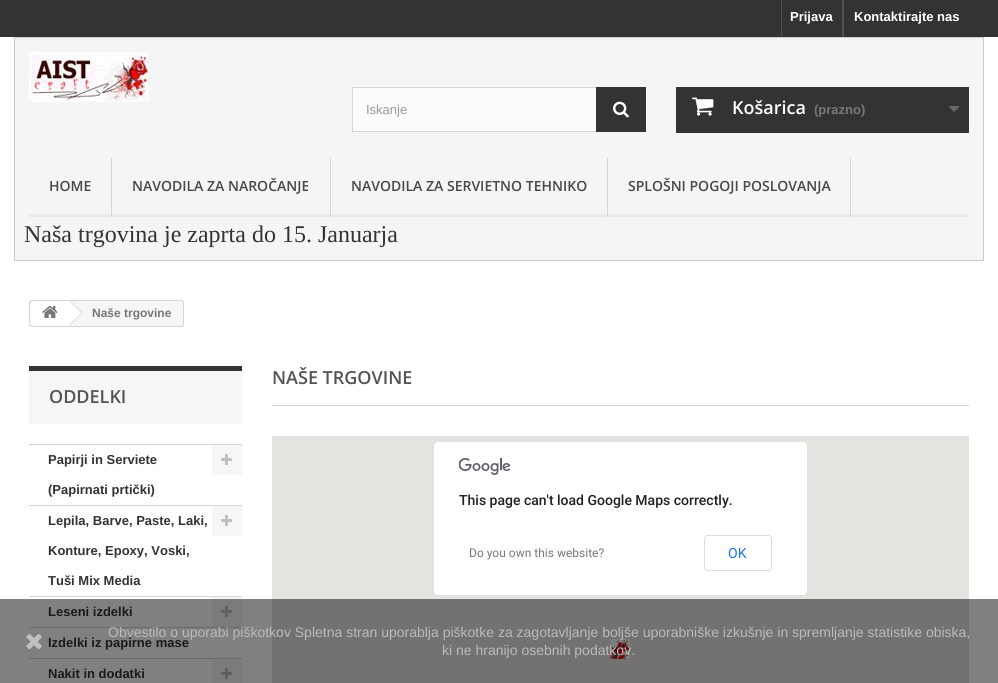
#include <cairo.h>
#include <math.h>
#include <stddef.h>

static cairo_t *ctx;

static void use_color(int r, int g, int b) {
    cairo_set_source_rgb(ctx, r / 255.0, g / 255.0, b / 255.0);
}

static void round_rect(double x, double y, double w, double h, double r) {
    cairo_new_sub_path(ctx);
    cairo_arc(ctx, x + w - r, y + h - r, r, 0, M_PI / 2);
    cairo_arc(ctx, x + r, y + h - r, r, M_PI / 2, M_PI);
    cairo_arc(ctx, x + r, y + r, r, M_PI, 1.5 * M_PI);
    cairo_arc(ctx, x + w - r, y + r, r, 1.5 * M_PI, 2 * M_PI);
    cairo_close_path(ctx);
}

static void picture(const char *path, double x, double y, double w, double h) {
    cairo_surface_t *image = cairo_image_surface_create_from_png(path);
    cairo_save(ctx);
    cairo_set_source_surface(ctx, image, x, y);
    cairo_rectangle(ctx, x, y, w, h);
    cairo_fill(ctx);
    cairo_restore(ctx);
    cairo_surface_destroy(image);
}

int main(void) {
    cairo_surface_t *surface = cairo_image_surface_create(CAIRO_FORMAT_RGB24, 998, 683);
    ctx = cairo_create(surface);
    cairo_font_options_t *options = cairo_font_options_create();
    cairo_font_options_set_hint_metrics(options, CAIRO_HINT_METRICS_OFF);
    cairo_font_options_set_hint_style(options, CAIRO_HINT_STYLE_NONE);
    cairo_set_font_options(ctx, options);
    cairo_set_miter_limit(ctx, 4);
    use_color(255, 255, 255);
    cairo_paint(ctx);
    use_color(128, 128, 128);
    cairo_rectangle(ctx, 0, 599, 998, 84);
    cairo_fill(ctx);
    use_color(51, 51, 51);
    cairo_rectangle(ctx, 0, 0, 998, 37);
    cairo_fill(ctx);
    use_color(81, 81, 81);
    cairo_rectangle(ctx, 781, 0, 1, 37);
    cairo_fill(ctx);
    cairo_select_font_face(ctx, "Liberation Sans", CAIRO_FONT_SLANT_NORMAL, CAIRO_FONT_WEIGHT_BOLD);
    cairo_set_font_size(ctx, 13);
    use_color(255, 255, 255);
    cairo_move_to(ctx, 790, 21);
    cairo_show_text(ctx, "Prijava");
    use_color(81, 81, 81);
    cairo_rectangle(ctx, 842, 0, 2, 37);
    cairo_fill(ctx);
    use_color(255, 255, 255);
    cairo_move_to(ctx, 854, 21);
    cairo_show_text(ctx, "Kontaktirajte nas");
    use_color(245, 245, 245);
    cairo_rectangle(ctx, 14.5, 37.5, 969, 223);
    cairo_fill_preserve(ctx);
    use_color(204, 204, 204);
    cairo_set_line_width(ctx, 1);
    cairo_stroke(ctx);
    picture("img1.png", 29, 52, 120, 50);
    use_color(251, 251, 251);
    cairo_rectangle(ctx, 353, 88, 243, 43);
    cairo_fill(ctx);
    cairo_rectangle(ctx, 352.5, 87.5, 293, 44);
    use_color(214, 212, 212);
    cairo_stroke(ctx);
    cairo_select_font_face(ctx, "Liberation Sans", CAIRO_FONT_SLANT_NORMAL, CAIRO_FONT_WEIGHT_NORMAL);
    use_color(153, 153, 153);
    cairo_move_to(ctx, 366, 114);
    cairo_show_text(ctx, "Iskanje");
    use_color(51, 51, 51);
    cairo_rectangle(ctx, 596, 87, 50, 45);
    cairo_fill(ctx);
    picture("img2.png", 613, 101, 16, 17);
    cairo_rectangle(ctx, 676, 87, 293, 46);
    cairo_fill(ctx);
    picture("img3.png", 692, 97, 22, 19);
    cairo_select_font_face(ctx, "Open Sans SemiBold", CAIRO_FONT_SLANT_NORMAL, CAIRO_FONT_WEIGHT_NORMAL);
    cairo_set_font_size(ctx, 18);
    use_color(255, 255, 255);
    cairo_move_to(ctx, 732, 114);
    cairo_show_text(ctx, "Košarica");
    cairo_select_font_face(ctx, "Liberation Sans", CAIRO_FONT_SLANT_NORMAL, CAIRO_FONT_WEIGHT_BOLD);
    cairo_set_font_size(ctx, 13);
    use_color(119, 119, 119);
    cairo_move_to(ctx, 814, 114);
    cairo_show_text(ctx, "(prazno)");
    picture("img4.png", 949, 106, 11, 6);
    use_color(233, 233, 233);
    cairo_rectangle(ctx, 29, 214, 940, 3);
    cairo_fill(ctx);
    use_color(214, 212, 212);
    cairo_rectangle(ctx, 111, 158, 1, 59);
    cairo_fill(ctx);
    cairo_select_font_face(ctx, "Open Sans SemiBold", CAIRO_FONT_SLANT_NORMAL, CAIRO_FONT_WEIGHT_NORMAL);
    cairo_set_font_size(ctx, 14);
    use_color(72, 72, 72);
    cairo_move_to(ctx, 49, 191);
    cairo_show_text(ctx, "HOME");
    use_color(214, 212, 212);
    cairo_rectangle(ctx, 330, 158, 1, 59);
    cairo_fill(ctx);
    use_color(72, 72, 72);
    cairo_move_to(ctx, 132, 191);
    cairo_show_text(ctx, "NAVODILA ZA NAROČANJE");
    use_color(214, 212, 212);
    cairo_rectangle(ctx, 607, 158, 1, 59);
    cairo_fill(ctx);
    use_color(72, 72, 72);
    cairo_move_to(ctx, 351, 191);
    cairo_show_text(ctx, "NAVODILA ZA SERVIETNO TEHNIKO");
    use_color(214, 212, 212);
    cairo_rectangle(ctx, 850, 158, 1, 59);
    cairo_fill(ctx);
    use_color(72, 72, 72);
    cairo_move_to(ctx, 628, 191);
    cairo_show_text(ctx, "SPLOŠNI POGOJI POSLOVANJA");
    cairo_select_font_face(ctx, "Liberation Serif", CAIRO_FONT_SLANT_NORMAL, CAIRO_FONT_WEIGHT_NORMAL);
    cairo_set_font_size(ctx, 24);
    use_color(51, 51, 51);
    cairo_move_to(ctx, 24, 242);
    cairo_show_text(ctx, "Naša trgovina je zaprta do 15. Januarja");
    use_color(246, 246, 246);
    round_rect(29.5, 300.5, 154, 26, 2.5);
    cairo_fill_preserve(ctx);
    use_color(214, 212, 212);
    cairo_stroke(ctx);
    use_color(255, 255, 255);
    cairo_new_path(ctx);
    cairo_move_to(ctx, 34, 301);
    cairo_line_to(ctx, 69, 301);
    cairo_line_to(ctx, 69, 326);
    cairo_line_to(ctx, 34, 326);
    cairo_curve_to(ctx, 32.5, 326, 31, 324.5, 31, 323);
    cairo_line_to(ctx, 31, 304);
    cairo_curve_to(ctx, 31, 302.5, 32.5, 301, 34, 301);
    cairo_close_path(ctx);
    cairo_fill(ctx);
    picture("img5.png", 42, 305, 16, 13);
    cairo_new_path(ctx);
    cairo_move_to(ctx, 71.5, 301.5);
    cairo_line_to(ctx, 81.5, 311.5);
    cairo_curve_to(ctx, 82, 312, 82, 313.5, 81.5, 314);
    cairo_line_to(ctx, 71.5, 324);
    cairo_curve_to(ctx, 70.5, 325, 69.5, 325, 68.5, 324);
    cairo_line_to(ctx, 58.5, 314);
    cairo_curve_to(ctx, 58, 313.5, 58, 312, 58.5, 311.5);
    cairo_line_to(ctx, 68.5, 301.5);
    cairo_curve_to(ctx, 69.5, 300.5, 70.5, 300.5, 71.5, 301.5);
    cairo_close_path(ctx);
    cairo_fill(ctx);
    use_color(214, 212, 212);
    cairo_new_path(ctx);
    cairo_move_to(ctx, 70.5, 301);
    cairo_line_to(ctx, 82, 312);
    cairo_line_to(ctx, 81.5, 313);
    cairo_line_to(ctx, 70, 301.5);
    cairo_close_path(ctx);
    cairo_move_to(ctx, 81.5, 313);
    cairo_line_to(ctx, 82, 313.5);
    cairo_line_to(ctx, 70.5, 325);
    cairo_line_to(ctx, 70, 324);
    cairo_close_path(ctx);
    cairo_fill(ctx);
    cairo_select_font_face(ctx, "Liberation Sans", CAIRO_FONT_SLANT_NORMAL, CAIRO_FONT_WEIGHT_BOLD);
    cairo_set_font_size(ctx, 12);
    use_color(119, 119, 119);
    cairo_move_to(ctx, 92, 317);
    cairo_show_text(ctx, "Naše trgovine");
    use_color(246, 246, 246);
    cairo_rectangle(ctx, 29, 371, 213, 53);
    cairo_fill(ctx);
    use_color(51, 51, 51);
    cairo_rectangle(ctx, 29, 366, 213, 5);
    cairo_fill(ctx);
    cairo_select_font_face(ctx, "Open Sans SemiBold", CAIRO_FONT_SLANT_NORMAL, CAIRO_FONT_WEIGHT_NORMAL);
    cairo_set_font_size(ctx, 18);
    use_color(85, 84, 84);
    cairo_move_to(ctx, 49, 403);
    cairo_show_text(ctx, "ODDELKI");
    use_color(214, 212, 212);
    cairo_rectangle(ctx, 29, 444, 213, 1);
    cairo_fill(ctx);
    cairo_rectangle(ctx, 29, 505, 213, 1);
    cairo_fill(ctx);
    cairo_select_font_face(ctx, "Liberation Sans", CAIRO_FONT_SLANT_NORMAL, CAIRO_FONT_WEIGHT_BOLD);
    cairo_set_font_size(ctx, 13);
    use_color(51, 51, 51);
    cairo_move_to(ctx, 48, 464);
    cairo_show_text(ctx, "Papirji in Serviete");
    cairo_move_to(ctx, 48, 494);
    cairo_show_text(ctx, "(Papirnati prtički)");
    use_color(246, 246, 246);
    cairo_rectangle(ctx, 212, 445, 30, 30);
    cairo_fill(ctx);
    picture("img6.png", 221, 454, 11, 11);
    use_color(214, 212, 212);
    cairo_rectangle(ctx, 29, 596, 213, 1);
    cairo_fill(ctx);
    use_color(51, 51, 51);
    cairo_move_to(ctx, 48, 525);
    cairo_show_text(ctx, "Lepila, Barve, Paste, Laki,");
    cairo_move_to(ctx, 48, 555);
    cairo_show_text(ctx, "Konture, Epoxy, Voski,");
    cairo_move_to(ctx, 48, 585);
    cairo_show_text(ctx, "Tuši Mix Media");
    use_color(246, 246, 246);
    cairo_rectangle(ctx, 212, 506, 30, 30);
    cairo_fill(ctx);
    picture("img6.png", 221, 515, 11, 11);
    use_color(107, 106, 106);
    cairo_rectangle(ctx, 29, 627, 213, 1);
    cairo_fill(ctx);
    use_color(26, 26, 26);
    cairo_move_to(ctx, 48, 616);
    cairo_show_text(ctx, "Leseni izdelki");
    use_color(246, 246, 246);
    cairo_rectangle(ctx, 212, 597, 30, 2);
    cairo_fill(ctx);
    use_color(123, 123, 123);
    cairo_rectangle(ctx, 212, 599, 30, 28);
    cairo_fill(ctx);
    picture("img7.png", 221, 606, 11, 11);
    use_color(107, 106, 106);
    cairo_rectangle(ctx, 29, 658, 213, 1);
    cairo_fill(ctx);
    use_color(26, 26, 26);
    cairo_move_to(ctx, 48, 647);
    cairo_show_text(ctx, "Izdelki iz papirne mase");
    cairo_move_to(ctx, 48, 678);
    cairo_show_text(ctx, "Nakit in dodatki");
    use_color(123, 123, 123);
    cairo_rectangle(ctx, 212, 659, 30, 24);
    cairo_fill(ctx);
    picture("img7.png", 221, 668, 11, 11);
    use_color(214, 212, 212);
    cairo_rectangle(ctx, 272, 405, 697, 1);
    cairo_fill(ctx);
    cairo_select_font_face(ctx, "Open Sans SemiBold", CAIRO_FONT_SLANT_NORMAL, CAIRO_FONT_WEIGHT_NORMAL);
    cairo_set_font_size(ctx, 18);
    use_color(85, 84, 84);
    cairo_move_to(ctx, 272, 384);
    cairo_show_text(ctx, "NAŠE TRGOVINE");
    use_color(229, 227, 223);
    cairo_rectangle(ctx, 272, 436, 697, 163);
    cairo_fill(ctx);
    use_color(115, 114, 112);
    cairo_rectangle(ctx, 272, 599, 697, 84);
    cairo_fill(ctx);
    picture("img8.png", 610, 639, 20, 20);
    use_color(255, 255, 255);
    round_rect(433, 441, 375, 155, 5);
    cairo_fill(ctx);
    round_rect(433.5, 441.5, 374, 154, 4.5);
    cairo_set_source_rgba(ctx, 0, 0, 0, 0.12);
    cairo_stroke(ctx);
    picture("img9.png", 459, 458, 52, 17);
    cairo_select_font_face(ctx, "Roboto Medium", CAIRO_FONT_SLANT_NORMAL, CAIRO_FONT_WEIGHT_NORMAL);
    cairo_set_font_size(ctx, 14);
    use_color(33, 33, 33);
    cairo_move_to(ctx, 459, 505);
    cairo_show_text(ctx, "This page can't load Google Maps correctly.");
    cairo_select_font_face(ctx, "Roboto", CAIRO_FONT_SLANT_NORMAL, CAIRO_FONT_WEIGHT_NORMAL);
    cairo_set_font_size(ctx, 12);
    use_color(119, 119, 119);
    cairo_move_to(ctx, 469, 557);
    cairo_show_text(ctx, "Do you own this website?");
    round_rect(704.5, 535.5, 67, 35, 3.5);
    use_color(218, 220, 224);
    cairo_stroke(ctx);
    cairo_set_font_size(ctx, 14);
    use_color(26, 115, 232);
    cairo_move_to(ctx, 728, 558);
    cairo_show_text(ctx, "OK");
    picture("img10.png", 26, 634, 16, 16);
    cairo_select_font_face(ctx, "Liberation Sans", CAIRO_FONT_SLANT_NORMAL, CAIRO_FONT_WEIGHT_NORMAL);
    use_color(186, 186, 185);
    cairo_move_to(ctx, 108, 637);
    cairo_show_text(ctx, "Obvestilo o uporabi piškotkov Spletna stran uporablja piškotke za zagotavljanje boljše uporabniške izkušnje in spremljanje statistike obiska,");
    cairo_move_to(ctx, 442, 655);
    cairo_show_text(ctx, "ki ne hranijo osebnih podatkov.");
    cairo_surface_write_to_png(surface, "result.png");
    cairo_font_options_destroy(options);
    cairo_destroy(ctx);
    cairo_surface_destroy(surface);
    return 0;
}
